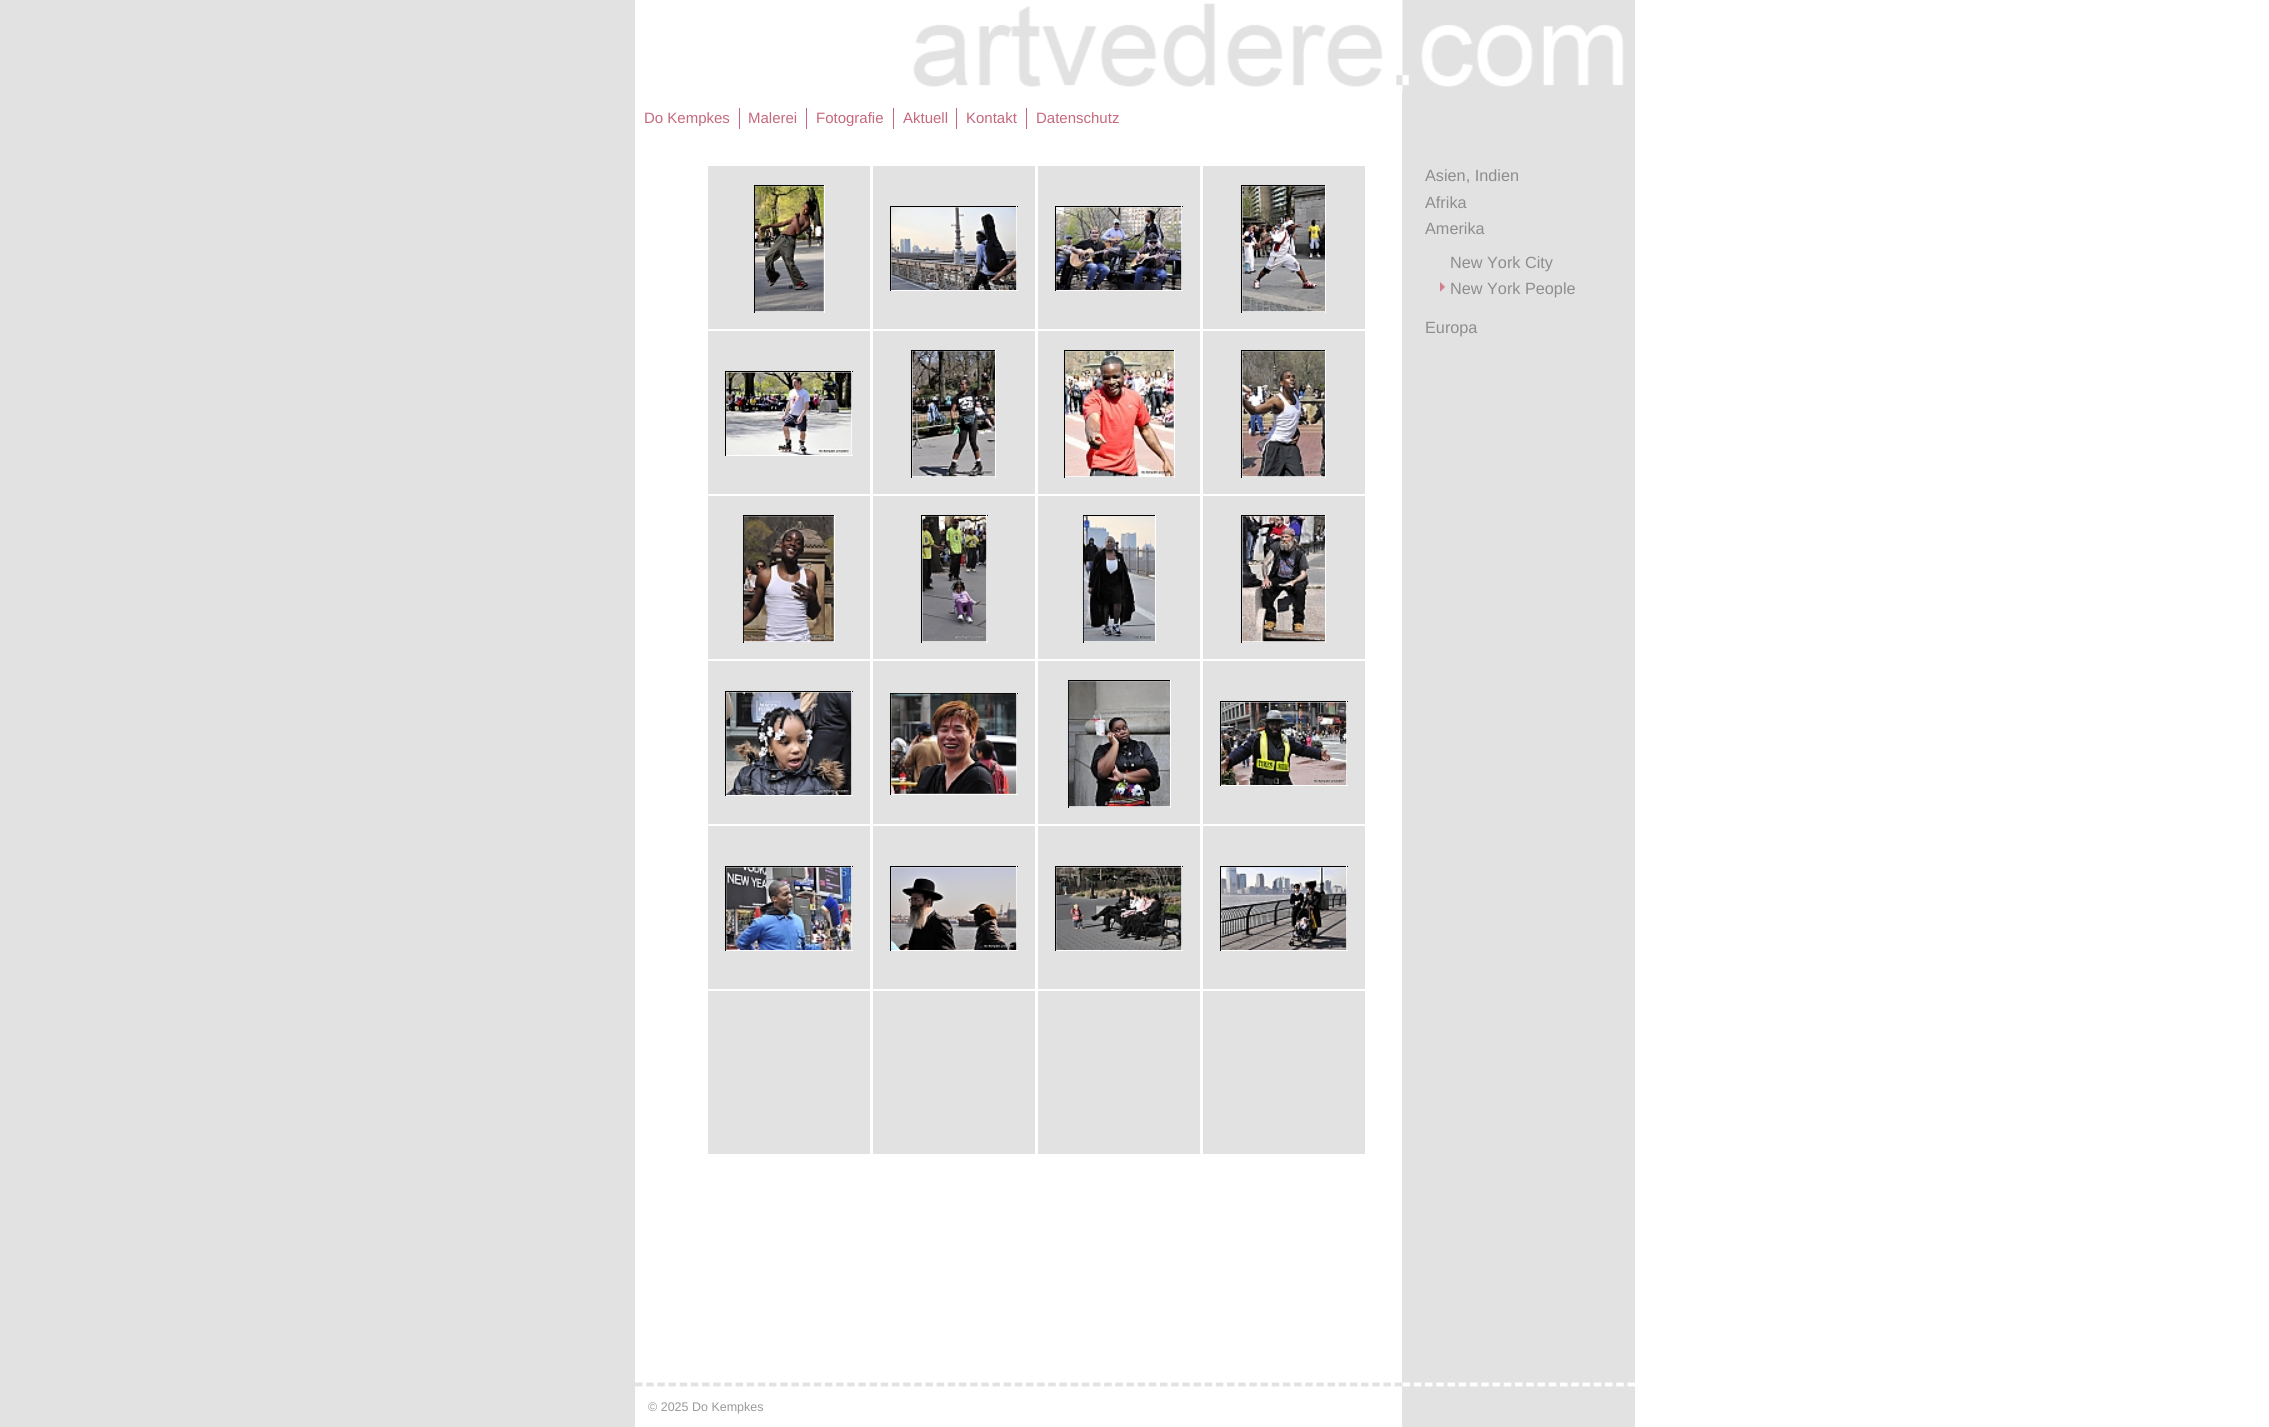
#include <cairo.h>
#include <math.h>
#include <stddef.h>

static cairo_t *ctx;

static void use_color(int r, int g, int b) {
    cairo_set_source_rgb(ctx, r / 255.0, g / 255.0, b / 255.0);
}

static void picture(const char *path, double x, double y, double w, double h) {
    cairo_surface_t *image = cairo_image_surface_create_from_png(path);
    cairo_save(ctx);
    cairo_set_source_surface(ctx, image, x, y);
    cairo_rectangle(ctx, x, y, w, h);
    cairo_fill(ctx);
    cairo_restore(ctx);
    cairo_surface_destroy(image);
}

int main(void) {
    cairo_surface_t *surface = cairo_image_surface_create(CAIRO_FORMAT_RGB24, 2269, 1427);
    ctx = cairo_create(surface);
    cairo_font_options_t *options = cairo_font_options_create();
    cairo_font_options_set_hint_metrics(options, CAIRO_HINT_METRICS_OFF);
    cairo_font_options_set_hint_style(options, CAIRO_HINT_STYLE_NONE);
    cairo_set_font_options(ctx, options);
    cairo_set_miter_limit(ctx, 4);
    use_color(255, 255, 255);
    cairo_paint(ctx);
    use_color(226, 226, 226);
    cairo_rectangle(ctx, 0, 0, 635, 1427);
    cairo_fill(ctx);
    cairo_rectangle(ctx, 1402, 0, 233, 1427);
    cairo_fill(ctx);
    picture("img1.png", 913, 0, 711, 93);
    cairo_select_font_face(ctx, "Liberation Sans", CAIRO_FONT_SLANT_NORMAL, CAIRO_FONT_WEIGHT_NORMAL);
    cairo_set_font_size(ctx, 15);
    use_color(198, 104, 125);
    cairo_move_to(ctx, 644, 123);
    cairo_show_text(ctx, "Do Kempkes");
    cairo_rectangle(ctx, 739, 108, 1, 21);
    cairo_fill(ctx);
    cairo_move_to(ctx, 748, 123);
    cairo_show_text(ctx, "Malerei");
    cairo_rectangle(ctx, 806, 108, 1, 21);
    cairo_fill(ctx);
    cairo_move_to(ctx, 816, 123);
    cairo_show_text(ctx, "Fotografie");
    cairo_rectangle(ctx, 893, 108, 1, 21);
    cairo_fill(ctx);
    cairo_move_to(ctx, 903, 123);
    cairo_show_text(ctx, "Aktuell");
    cairo_rectangle(ctx, 956, 108, 1, 21);
    cairo_fill(ctx);
    cairo_move_to(ctx, 966, 123);
    cairo_show_text(ctx, "Kontakt");
    cairo_rectangle(ctx, 1026, 108, 1, 21);
    cairo_fill(ctx);
    cairo_move_to(ctx, 1036, 123);
    cairo_show_text(ctx, "Datenschutz");
    use_color(226, 226, 226);
    cairo_rectangle(ctx, 708, 166, 162, 163);
    cairo_fill(ctx);
    use_color(0, 0, 0);
    cairo_rectangle(ctx, 754, 185, 71, 1);
    cairo_fill(ctx);
    use_color(255, 255, 255);
    cairo_rectangle(ctx, 824, 185, 1, 128);
    cairo_fill(ctx);
    cairo_rectangle(ctx, 754, 311, 71, 1);
    cairo_fill(ctx);
    use_color(0, 0, 0);
    cairo_rectangle(ctx, 754, 185, 1, 128);
    cairo_fill(ctx);
    picture("img2.png", 755, 186, 69, 126);
    use_color(226, 226, 226);
    cairo_rectangle(ctx, 873, 166, 162, 163);
    cairo_fill(ctx);
    use_color(0, 0, 0);
    cairo_rectangle(ctx, 890, 206, 128, 1);
    cairo_fill(ctx);
    use_color(255, 255, 255);
    cairo_rectangle(ctx, 1016, 206, 1, 85);
    cairo_fill(ctx);
    cairo_rectangle(ctx, 890, 290, 128, 1);
    cairo_fill(ctx);
    use_color(0, 0, 0);
    cairo_rectangle(ctx, 890, 206, 1, 85);
    cairo_fill(ctx);
    picture("img3.png", 891, 207, 126, 83);
    use_color(226, 226, 226);
    cairo_rectangle(ctx, 1038, 166, 162, 163);
    cairo_fill(ctx);
    use_color(0, 0, 0);
    cairo_rectangle(ctx, 1055, 206, 128, 1);
    cairo_fill(ctx);
    use_color(255, 255, 255);
    cairo_rectangle(ctx, 1181, 206, 1, 85);
    cairo_fill(ctx);
    cairo_rectangle(ctx, 1055, 290, 128, 1);
    cairo_fill(ctx);
    use_color(0, 0, 0);
    cairo_rectangle(ctx, 1055, 206, 1, 85);
    cairo_fill(ctx);
    picture("img4.png", 1056, 207, 126, 83);
    use_color(226, 226, 226);
    cairo_rectangle(ctx, 1203, 166, 162, 163);
    cairo_fill(ctx);
    use_color(0, 0, 0);
    cairo_rectangle(ctx, 1241, 185, 85, 1);
    cairo_fill(ctx);
    use_color(255, 255, 255);
    cairo_rectangle(ctx, 1325, 185, 1, 128);
    cairo_fill(ctx);
    cairo_rectangle(ctx, 1241, 311, 85, 1);
    cairo_fill(ctx);
    use_color(0, 0, 0);
    cairo_rectangle(ctx, 1241, 185, 1, 128);
    cairo_fill(ctx);
    picture("img5.png", 1242, 186, 83, 126);
    use_color(226, 226, 226);
    cairo_rectangle(ctx, 708, 331, 162, 163);
    cairo_fill(ctx);
    use_color(0, 0, 0);
    cairo_rectangle(ctx, 725, 371, 128, 1);
    cairo_fill(ctx);
    use_color(255, 255, 255);
    cairo_rectangle(ctx, 851, 371, 1, 85);
    cairo_fill(ctx);
    cairo_rectangle(ctx, 725, 455, 128, 1);
    cairo_fill(ctx);
    use_color(0, 0, 0);
    cairo_rectangle(ctx, 725, 371, 1, 85);
    cairo_fill(ctx);
    picture("img6.png", 726, 372, 126, 83);
    use_color(226, 226, 226);
    cairo_rectangle(ctx, 873, 331, 162, 163);
    cairo_fill(ctx);
    use_color(0, 0, 0);
    cairo_rectangle(ctx, 911, 350, 85, 1);
    cairo_fill(ctx);
    use_color(255, 255, 255);
    cairo_rectangle(ctx, 995, 350, 1, 128);
    cairo_fill(ctx);
    cairo_rectangle(ctx, 911, 476, 85, 1);
    cairo_fill(ctx);
    use_color(0, 0, 0);
    cairo_rectangle(ctx, 911, 350, 1, 128);
    cairo_fill(ctx);
    picture("img7.png", 912, 351, 83, 126);
    use_color(226, 226, 226);
    cairo_rectangle(ctx, 1038, 331, 162, 163);
    cairo_fill(ctx);
    use_color(0, 0, 0);
    cairo_rectangle(ctx, 1064, 350, 111, 1);
    cairo_fill(ctx);
    use_color(255, 255, 255);
    cairo_rectangle(ctx, 1174, 350, 1, 128);
    cairo_fill(ctx);
    cairo_rectangle(ctx, 1064, 476, 111, 1);
    cairo_fill(ctx);
    use_color(0, 0, 0);
    cairo_rectangle(ctx, 1064, 350, 1, 128);
    cairo_fill(ctx);
    picture("img8.png", 1065, 351, 109, 126);
    use_color(226, 226, 226);
    cairo_rectangle(ctx, 1203, 331, 162, 163);
    cairo_fill(ctx);
    use_color(0, 0, 0);
    cairo_rectangle(ctx, 1241, 350, 85, 1);
    cairo_fill(ctx);
    use_color(255, 255, 255);
    cairo_rectangle(ctx, 1325, 350, 1, 128);
    cairo_fill(ctx);
    cairo_rectangle(ctx, 1241, 476, 85, 1);
    cairo_fill(ctx);
    use_color(0, 0, 0);
    cairo_rectangle(ctx, 1241, 350, 1, 128);
    cairo_fill(ctx);
    picture("img9.png", 1242, 351, 83, 126);
    use_color(226, 226, 226);
    cairo_rectangle(ctx, 708, 496, 162, 163);
    cairo_fill(ctx);
    use_color(0, 0, 0);
    cairo_rectangle(ctx, 743, 515, 92, 1);
    cairo_fill(ctx);
    use_color(255, 255, 255);
    cairo_rectangle(ctx, 834, 515, 1, 128);
    cairo_fill(ctx);
    cairo_rectangle(ctx, 743, 641, 92, 1);
    cairo_fill(ctx);
    use_color(0, 0, 0);
    cairo_rectangle(ctx, 743, 515, 1, 128);
    cairo_fill(ctx);
    picture("img10.png", 743, 516, 91, 126);
    use_color(226, 226, 226);
    cairo_rectangle(ctx, 873, 496, 162, 163);
    cairo_fill(ctx);
    use_color(0, 0, 0);
    cairo_rectangle(ctx, 921, 515, 67, 1);
    cairo_fill(ctx);
    use_color(255, 255, 255);
    cairo_rectangle(ctx, 986, 515, 1, 128);
    cairo_fill(ctx);
    cairo_rectangle(ctx, 921, 641, 67, 1);
    cairo_fill(ctx);
    use_color(0, 0, 0);
    cairo_rectangle(ctx, 921, 515, 1, 128);
    cairo_fill(ctx);
    picture("img11.png", 922, 516, 65, 126);
    use_color(226, 226, 226);
    cairo_rectangle(ctx, 1038, 496, 162, 163);
    cairo_fill(ctx);
    use_color(0, 0, 0);
    cairo_rectangle(ctx, 1083, 515, 73, 1);
    cairo_fill(ctx);
    use_color(255, 255, 255);
    cairo_rectangle(ctx, 1155, 515, 1, 128);
    cairo_fill(ctx);
    cairo_rectangle(ctx, 1083, 641, 73, 1);
    cairo_fill(ctx);
    use_color(0, 0, 0);
    cairo_rectangle(ctx, 1083, 515, 1, 128);
    cairo_fill(ctx);
    picture("img12.png", 1083, 516, 72, 126);
    use_color(226, 226, 226);
    cairo_rectangle(ctx, 1203, 496, 162, 163);
    cairo_fill(ctx);
    use_color(0, 0, 0);
    cairo_rectangle(ctx, 1241, 515, 85, 1);
    cairo_fill(ctx);
    use_color(255, 255, 255);
    cairo_rectangle(ctx, 1325, 515, 1, 128);
    cairo_fill(ctx);
    cairo_rectangle(ctx, 1241, 641, 85, 1);
    cairo_fill(ctx);
    use_color(0, 0, 0);
    cairo_rectangle(ctx, 1241, 515, 1, 128);
    cairo_fill(ctx);
    picture("img13.png", 1242, 516, 83, 126);
    use_color(226, 226, 226);
    cairo_rectangle(ctx, 708, 661, 162, 163);
    cairo_fill(ctx);
    use_color(0, 0, 0);
    cairo_rectangle(ctx, 725, 691, 128, 1);
    cairo_fill(ctx);
    use_color(255, 255, 255);
    cairo_rectangle(ctx, 851, 691, 1, 105);
    cairo_fill(ctx);
    cairo_rectangle(ctx, 725, 795, 128, 1);
    cairo_fill(ctx);
    use_color(0, 0, 0);
    cairo_rectangle(ctx, 725, 691, 1, 105);
    cairo_fill(ctx);
    picture("img14.png", 726, 692, 126, 103);
    use_color(226, 226, 226);
    cairo_rectangle(ctx, 873, 661, 162, 163);
    cairo_fill(ctx);
    use_color(0, 0, 0);
    cairo_rectangle(ctx, 890, 693, 128, 1);
    cairo_fill(ctx);
    use_color(255, 255, 255);
    cairo_rectangle(ctx, 1016, 693, 1, 102);
    cairo_fill(ctx);
    cairo_rectangle(ctx, 890, 794, 128, 1);
    cairo_fill(ctx);
    use_color(0, 0, 0);
    cairo_rectangle(ctx, 890, 693, 1, 102);
    cairo_fill(ctx);
    picture("img15.png", 891, 693, 126, 101);
    use_color(226, 226, 226);
    cairo_rectangle(ctx, 1038, 661, 162, 163);
    cairo_fill(ctx);
    use_color(0, 0, 0);
    cairo_rectangle(ctx, 1068, 680, 103, 1);
    cairo_fill(ctx);
    use_color(255, 255, 255);
    cairo_rectangle(ctx, 1170, 680, 1, 128);
    cairo_fill(ctx);
    cairo_rectangle(ctx, 1068, 806, 103, 1);
    cairo_fill(ctx);
    use_color(0, 0, 0);
    cairo_rectangle(ctx, 1068, 680, 1, 128);
    cairo_fill(ctx);
    picture("img16.png", 1068, 681, 102, 126);
    use_color(226, 226, 226);
    cairo_rectangle(ctx, 1203, 661, 162, 163);
    cairo_fill(ctx);
    use_color(0, 0, 0);
    cairo_rectangle(ctx, 1220, 701, 128, 1);
    cairo_fill(ctx);
    use_color(255, 255, 255);
    cairo_rectangle(ctx, 1346, 701, 1, 85);
    cairo_fill(ctx);
    cairo_rectangle(ctx, 1220, 785, 128, 1);
    cairo_fill(ctx);
    use_color(0, 0, 0);
    cairo_rectangle(ctx, 1220, 701, 1, 85);
    cairo_fill(ctx);
    picture("img17.png", 1221, 702, 126, 83);
    use_color(226, 226, 226);
    cairo_rectangle(ctx, 708, 826, 162, 163);
    cairo_fill(ctx);
    use_color(0, 0, 0);
    cairo_rectangle(ctx, 725, 866, 128, 1);
    cairo_fill(ctx);
    use_color(255, 255, 255);
    cairo_rectangle(ctx, 851, 866, 1, 85);
    cairo_fill(ctx);
    cairo_rectangle(ctx, 725, 950, 128, 1);
    cairo_fill(ctx);
    use_color(0, 0, 0);
    cairo_rectangle(ctx, 725, 866, 1, 85);
    cairo_fill(ctx);
    picture("img18.png", 726, 867, 126, 83);
    use_color(226, 226, 226);
    cairo_rectangle(ctx, 873, 826, 162, 163);
    cairo_fill(ctx);
    use_color(0, 0, 0);
    cairo_rectangle(ctx, 890, 866, 128, 1);
    cairo_fill(ctx);
    use_color(255, 255, 255);
    cairo_rectangle(ctx, 1016, 866, 1, 85);
    cairo_fill(ctx);
    cairo_rectangle(ctx, 890, 950, 128, 1);
    cairo_fill(ctx);
    use_color(0, 0, 0);
    cairo_rectangle(ctx, 890, 866, 1, 85);
    cairo_fill(ctx);
    picture("img19.png", 891, 867, 126, 83);
    use_color(226, 226, 226);
    cairo_rectangle(ctx, 1038, 826, 162, 163);
    cairo_fill(ctx);
    use_color(0, 0, 0);
    cairo_rectangle(ctx, 1055, 866, 128, 1);
    cairo_fill(ctx);
    use_color(255, 255, 255);
    cairo_rectangle(ctx, 1181, 866, 1, 85);
    cairo_fill(ctx);
    cairo_rectangle(ctx, 1055, 950, 128, 1);
    cairo_fill(ctx);
    use_color(0, 0, 0);
    cairo_rectangle(ctx, 1055, 866, 1, 85);
    cairo_fill(ctx);
    picture("img20.png", 1056, 867, 126, 83);
    use_color(226, 226, 226);
    cairo_rectangle(ctx, 1203, 826, 162, 163);
    cairo_fill(ctx);
    use_color(0, 0, 0);
    cairo_rectangle(ctx, 1220, 866, 128, 1);
    cairo_fill(ctx);
    use_color(255, 255, 255);
    cairo_rectangle(ctx, 1346, 866, 1, 85);
    cairo_fill(ctx);
    cairo_rectangle(ctx, 1220, 950, 128, 1);
    cairo_fill(ctx);
    use_color(0, 0, 0);
    cairo_rectangle(ctx, 1220, 866, 1, 85);
    cairo_fill(ctx);
    picture("img21.png", 1221, 867, 126, 83);
    use_color(226, 226, 226);
    cairo_rectangle(ctx, 708, 991, 162, 163);
    cairo_fill(ctx);
    cairo_rectangle(ctx, 873, 991, 162, 163);
    cairo_fill(ctx);
    cairo_rectangle(ctx, 1038, 991, 162, 163);
    cairo_fill(ctx);
    cairo_rectangle(ctx, 1203, 991, 162, 163);
    cairo_fill(ctx);
    cairo_set_font_size(ctx, 16.25);
    use_color(141, 141, 141);
    cairo_move_to(ctx, 1425, 181);
    cairo_show_text(ctx, "Asien, Indien");
    cairo_move_to(ctx, 1425, 208);
    cairo_show_text(ctx, "Afrika");
    cairo_move_to(ctx, 1425, 234);
    cairo_show_text(ctx, "Amerika");
    cairo_move_to(ctx, 1450, 268);
    cairo_show_text(ctx, "New York City");
    picture("img22.png", 1440, 282, 5, 10);
    cairo_move_to(ctx, 1450, 294);
    cairo_show_text(ctx, "New York People");
    cairo_move_to(ctx, 1425, 333);
    cairo_show_text(ctx, "Europa");
    cairo_new_path(ctx);
    cairo_move_to(ctx, 635, 1384.5);
    cairo_line_to(ctx, 1402.5, 1384.5);
    use_color(226, 226, 226);
    cairo_set_line_width(ctx, 3.8);
    cairo_set_dash(ctx, (double[]){7.5, 3.67}, 2, 0);
    cairo_stroke(ctx);
    cairo_new_path(ctx);
    cairo_move_to(ctx, 1402.5, 1384.5);
    cairo_line_to(ctx, 1635, 1384.5);
    use_color(255, 255, 255);
    cairo_set_dash(ctx, (double[]){7.5, 3.75}, 2, 0);
    cairo_stroke(ctx);
    cairo_set_font_size(ctx, 12.5);
    use_color(153, 153, 153);
    cairo_move_to(ctx, 648, 1411);
    cairo_show_text(ctx, "© 2025 Do Kempkes");
    cairo_surface_write_to_png(surface, "result.png");
    cairo_font_options_destroy(options);
    cairo_destroy(ctx);
    cairo_surface_destroy(surface);
    return 0;
}
